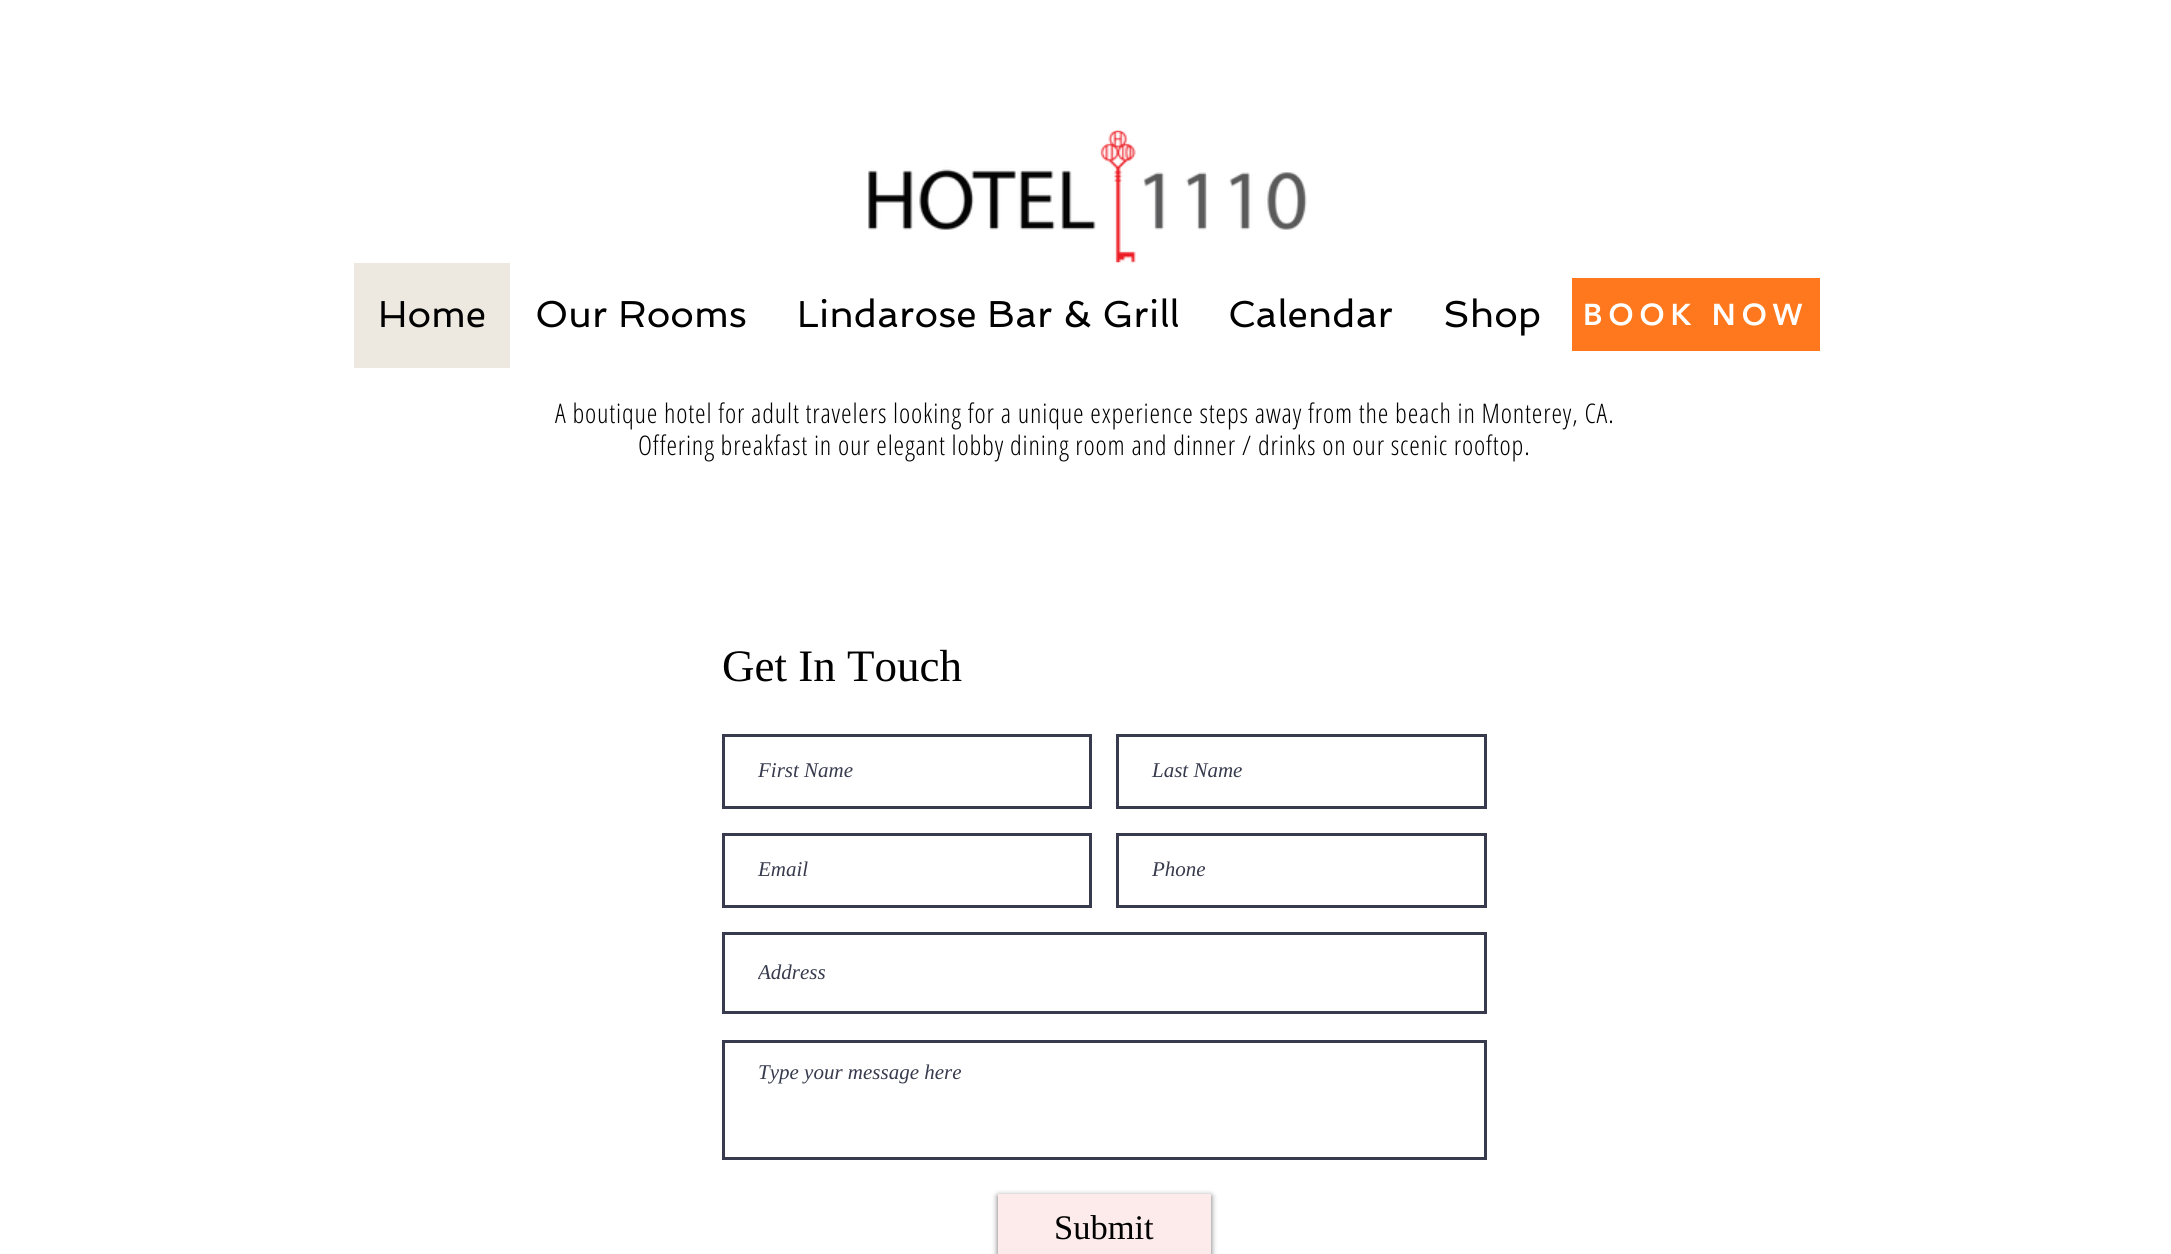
#include <cairo.h>
#include <math.h>
#include <stddef.h>

static cairo_t *ctx;

static void use_color(int r, int g, int b) {
    cairo_set_source_rgb(ctx, r / 255.0, g / 255.0, b / 255.0);
}

static void spaced_text(double x, double y, const char *s, double letter, double word) {
    cairo_move_to(ctx, x, y);
    while (*s) {
        char ch[5] = {0};
        int n = 0;
        do ch[n++] = *s++; while ((*s & 0xC0) == 0x80);
        cairo_show_text(ctx, ch);
        cairo_rel_move_to(ctx, letter + word * (*ch == ' '), 0);
    }
}

static void round_rect(double x, double y, double w, double h, double r) {
    cairo_new_sub_path(ctx);
    cairo_arc(ctx, x + w - r, y + h - r, r, 0, M_PI / 2);
    cairo_arc(ctx, x + r, y + h - r, r, M_PI / 2, M_PI);
    cairo_arc(ctx, x + r, y + r, r, M_PI, 1.5 * M_PI);
    cairo_arc(ctx, x + w - r, y + r, r, 1.5 * M_PI, 2 * M_PI);
    cairo_close_path(ctx);
}

static void shadow(double x, double y, double w, double h, double r, double blur, double alpha) {
    cairo_push_group_with_content(ctx, CAIRO_CONTENT_ALPHA);
    cairo_set_operator(ctx, CAIRO_OPERATOR_SOURCE);
    for (int i = 15; i >= -15 && fmin(w, h) + blur * i / 3 > 0; i -= 2) {
        double e = blur * i / 6;
        cairo_set_source_rgba(ctx, 0, 0, 0, alpha * erfc((i - 1) / 8.5) / 2);
        round_rect(x - e, y - e, w + 2 * e, h + 2 * e, fmax(0, fmin(r + e + blur * .6, fmin(w, h) / 2 + e)));
        cairo_fill(ctx);
    }
    cairo_pattern_t *soft = cairo_pop_group(ctx);
    cairo_mask(ctx, soft);
    cairo_pattern_destroy(soft);
}

static void picture(const char *path, double x, double y, double w, double h) {
    cairo_surface_t *image = cairo_image_surface_create_from_png(path);
    cairo_save(ctx);
    cairo_set_source_surface(ctx, image, x, y);
    cairo_rectangle(ctx, x, y, w, h);
    cairo_fill(ctx);
    cairo_restore(ctx);
    cairo_surface_destroy(image);
}

int main(void) {
    cairo_surface_t *surface = cairo_image_surface_create(CAIRO_FORMAT_RGB24, 2171, 1254);
    ctx = cairo_create(surface);
    cairo_font_options_t *options = cairo_font_options_create();
    cairo_font_options_set_hint_metrics(options, CAIRO_HINT_METRICS_OFF);
    cairo_font_options_set_hint_style(options, CAIRO_HINT_STYLE_NONE);
    cairo_set_font_options(ctx, options);
    cairo_set_miter_limit(ctx, 4);
    use_color(255, 255, 255);
    cairo_paint(ctx);
    picture("img1.png", 868, 130, 439, 133);
    use_color(237, 233, 225);
    cairo_rectangle(ctx, 354, 263, 156, 105);
    cairo_fill(ctx);
    cairo_select_font_face(ctx, "Spinnaker", CAIRO_FONT_SLANT_NORMAL, CAIRO_FONT_WEIGHT_NORMAL);
    cairo_set_font_size(ctx, 37.5);
    use_color(0, 0, 0);
    cairo_move_to(ctx, 378, 327);
    cairo_show_text(ctx, "Home");
    cairo_move_to(ctx, 535, 327);
    cairo_show_text(ctx, "Our Rooms");
    cairo_move_to(ctx, 797, 327);
    cairo_show_text(ctx, "Lindarose Bar & Grill");
    cairo_move_to(ctx, 1228, 327);
    cairo_show_text(ctx, "Calendar");
    cairo_move_to(ctx, 1443, 327);
    cairo_show_text(ctx, "Shop");
    use_color(255, 120, 29);
    cairo_rectangle(ctx, 1572, 278, 248, 73);
    cairo_fill(ctx);
    cairo_select_font_face(ctx, "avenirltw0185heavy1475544 Black", CAIRO_FONT_SLANT_NORMAL, CAIRO_FONT_WEIGHT_NORMAL);
    cairo_set_font_size(ctx, 30);
    use_color(255, 255, 255);
    spaced_text(1583, 325, "BOOK NOW", 6, 0);
    cairo_select_font_face(ctx, "Open Sans Condensed Light", CAIRO_FONT_SLANT_NORMAL, CAIRO_FONT_WEIGHT_NORMAL);
    cairo_set_font_size(ctx, 27);
    use_color(0, 0, 0);
    spaced_text(555, 423, "A boutique hotel for adult travelers looking for a unique experience steps away from the beach in Monterey, CA.", 0.81, 0);
    spaced_text(638, 455, "Offering breakfast in our elegant lobby dining room and dinner / drinks on our scenic rooftop.", 0.81, 0);
    cairo_select_font_face(ctx, "Liberation Serif", CAIRO_FONT_SLANT_NORMAL, CAIRO_FONT_WEIGHT_NORMAL);
    cairo_set_font_size(ctx, 45);
    cairo_move_to(ctx, 722, 681);
    cairo_show_text(ctx, "Get In Touch");
    cairo_rectangle(ctx, 723.5, 735.5, 367, 72);
    use_color(55, 59, 77);
    cairo_set_line_width(ctx, 3);
    cairo_stroke(ctx);
    cairo_select_font_face(ctx, "Liberation Serif", CAIRO_FONT_SLANT_ITALIC, CAIRO_FONT_WEIGHT_NORMAL);
    cairo_set_font_size(ctx, 21);
    cairo_move_to(ctx, 758, 777);
    cairo_show_text(ctx, "First Name");
    cairo_rectangle(ctx, 1117.5, 735.5, 368, 72);
    cairo_stroke(ctx);
    cairo_move_to(ctx, 1152, 777);
    cairo_show_text(ctx, "Last Name");
    cairo_rectangle(ctx, 723.5, 834.5, 367, 72);
    cairo_stroke(ctx);
    cairo_move_to(ctx, 758, 876);
    cairo_show_text(ctx, "Email");
    cairo_rectangle(ctx, 1117.5, 834.5, 368, 72);
    cairo_stroke(ctx);
    cairo_move_to(ctx, 1152, 876);
    cairo_show_text(ctx, "Phone");
    cairo_rectangle(ctx, 723.5, 933.5, 762, 79);
    cairo_stroke(ctx);
    cairo_save(ctx);
    cairo_rectangle(ctx, 758, 960, 721, 24);
    cairo_clip(ctx);
    cairo_move_to(ctx, 758, 979);
    cairo_show_text(ctx, "Address");
    cairo_restore(ctx);
    cairo_rectangle(ctx, 723.5, 1041.5, 762, 117);
    cairo_stroke(ctx);
    cairo_move_to(ctx, 758, 1079);
    cairo_show_text(ctx, "Type your message here");
    cairo_save(ctx);
    cairo_set_fill_rule(ctx, CAIRO_FILL_RULE_EVEN_ODD);
    cairo_new_path(ctx);
    cairo_move_to(ctx, 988, 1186);
    cairo_line_to(ctx, 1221, 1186);
    cairo_line_to(ctx, 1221, 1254);
    cairo_line_to(ctx, 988, 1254);
    cairo_close_path(ctx);
    cairo_move_to(ctx, 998, 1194);
    cairo_line_to(ctx, 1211, 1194);
    cairo_line_to(ctx, 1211, 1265);
    cairo_line_to(ctx, 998, 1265);
    cairo_close_path(ctx);
    cairo_clip(ctx);
    use_color(0, 0, 0);
    shadow(998, 1196, 213, 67, 0, 3, 0.6);
    cairo_restore(ctx);
    cairo_set_source_rgba(ctx, 0.949, 0.698, 0.682, 0.26);
    cairo_rectangle(ctx, 998, 1194, 213, 60);
    cairo_fill(ctx);
    cairo_select_font_face(ctx, "Liberation Serif", CAIRO_FONT_SLANT_NORMAL, CAIRO_FONT_WEIGHT_NORMAL);
    cairo_set_font_size(ctx, 34.5);
    use_color(0, 0, 0);
    cairo_move_to(ctx, 1054, 1239);
    cairo_show_text(ctx, "Submit");
    cairo_surface_write_to_png(surface, "result.png");
    cairo_font_options_destroy(options);
    cairo_destroy(ctx);
    cairo_surface_destroy(surface);
    return 0;
}
